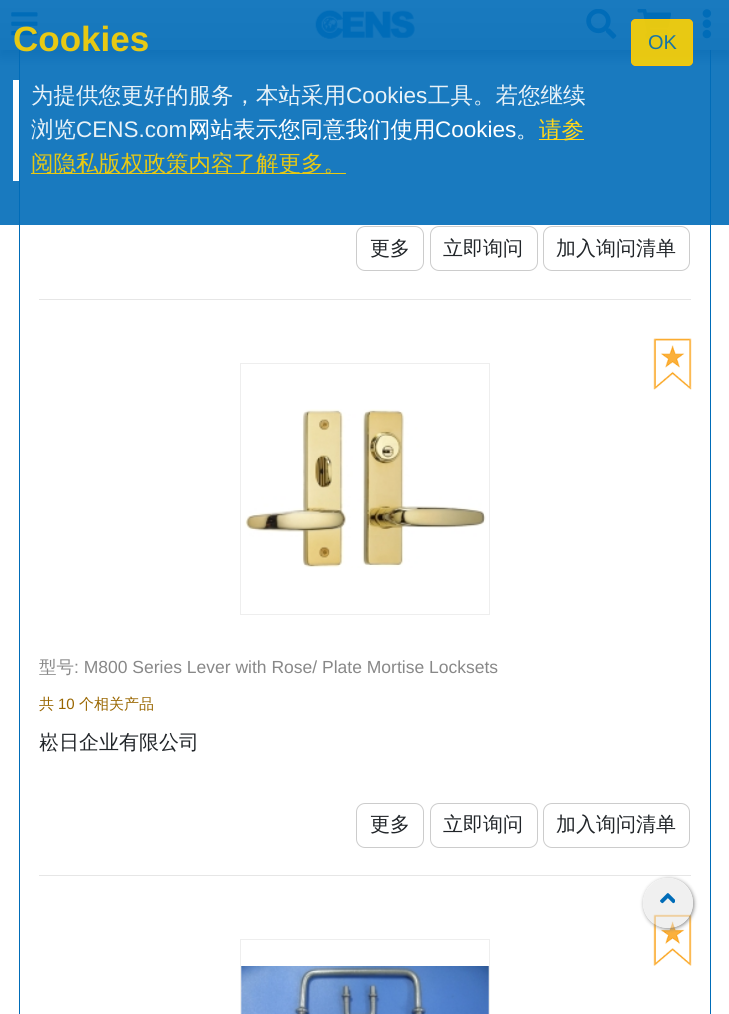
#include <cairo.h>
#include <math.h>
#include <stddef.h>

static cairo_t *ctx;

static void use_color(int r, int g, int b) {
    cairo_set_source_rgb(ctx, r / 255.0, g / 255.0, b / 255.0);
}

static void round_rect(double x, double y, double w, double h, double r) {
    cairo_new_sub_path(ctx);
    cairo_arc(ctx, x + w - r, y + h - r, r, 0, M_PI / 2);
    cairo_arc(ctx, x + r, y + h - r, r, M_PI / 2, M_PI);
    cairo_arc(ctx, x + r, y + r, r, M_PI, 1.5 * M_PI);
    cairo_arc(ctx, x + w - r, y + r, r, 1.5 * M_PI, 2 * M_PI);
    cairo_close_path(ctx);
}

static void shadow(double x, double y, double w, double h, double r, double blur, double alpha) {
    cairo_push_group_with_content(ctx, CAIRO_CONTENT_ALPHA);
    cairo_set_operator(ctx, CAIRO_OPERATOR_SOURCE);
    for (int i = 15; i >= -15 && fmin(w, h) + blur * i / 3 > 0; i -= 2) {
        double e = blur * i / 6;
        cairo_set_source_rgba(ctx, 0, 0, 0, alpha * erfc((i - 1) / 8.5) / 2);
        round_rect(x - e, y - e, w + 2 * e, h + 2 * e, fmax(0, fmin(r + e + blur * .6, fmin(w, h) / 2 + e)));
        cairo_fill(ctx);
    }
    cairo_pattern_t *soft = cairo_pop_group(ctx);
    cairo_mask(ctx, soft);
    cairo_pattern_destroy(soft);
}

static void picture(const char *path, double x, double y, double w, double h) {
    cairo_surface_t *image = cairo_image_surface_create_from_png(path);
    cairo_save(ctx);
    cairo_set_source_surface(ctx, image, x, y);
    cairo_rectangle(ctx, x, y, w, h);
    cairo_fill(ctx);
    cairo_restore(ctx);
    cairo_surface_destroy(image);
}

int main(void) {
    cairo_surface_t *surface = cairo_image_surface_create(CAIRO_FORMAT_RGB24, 729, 1014);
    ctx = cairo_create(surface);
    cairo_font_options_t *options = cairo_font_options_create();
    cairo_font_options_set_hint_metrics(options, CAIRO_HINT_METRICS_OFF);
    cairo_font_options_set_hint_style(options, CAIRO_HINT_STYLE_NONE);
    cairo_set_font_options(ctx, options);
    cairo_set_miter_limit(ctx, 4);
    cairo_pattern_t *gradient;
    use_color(255, 255, 255);
    cairo_paint(ctx);
    cairo_rectangle(ctx, 19.5, -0.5, 691, 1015);
    use_color(0, 108, 184);
    cairo_set_line_width(ctx, 1);
    cairo_stroke(ctx);
    use_color(51, 51, 102);
    shadow(0, 6, 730, 50, 0, 6, 0.5);
    gradient = cairo_pattern_create_linear(365, 0, 365, 50);
    cairo_pattern_add_color_stop_rgba(gradient, 0, 1, 1, 1, 1);
    cairo_pattern_add_color_stop_rgba(gradient, 1, 0.867, 0.867, 0.867, 1);
    cairo_set_source(ctx, gradient);
    cairo_pattern_destroy(gradient);
    cairo_rectangle(ctx, 0, 0, 729, 50);
    cairo_fill(ctx);
    picture("img1.png", 11, 12, 27, 24);
    picture("img2.png", 315, 9, 100, 30);
    picture("img3.png", 586, 9, 31, 30);
    picture("img4.png", 637, 9, 34, 30);
    picture("img5.png", 702, 9, 10, 30);
    cairo_set_source_rgba(ctx, 0, 0.424, 0.722, 0.9);
    cairo_rectangle(ctx, 0, 0, 729, 225);
    cairo_fill(ctx);
    cairo_select_font_face(ctx, "Liberation Sans", CAIRO_FONT_SLANT_NORMAL, CAIRO_FONT_WEIGHT_BOLD);
    cairo_set_font_size(ctx, 35);
    use_color(232, 201, 19);
    cairo_move_to(ctx, 13, 51);
    cairo_show_text(ctx, "Cookies");
    use_color(255, 255, 255);
    cairo_rectangle(ctx, 13, 80, 6, 101);
    cairo_fill(ctx);
    cairo_select_font_face(ctx, "WenQuanYi Zen Hei Medium", CAIRO_FONT_SLANT_NORMAL, CAIRO_FONT_WEIGHT_NORMAL);
    cairo_set_font_size(ctx, 22.5);
    use_color(232, 242, 248);
    cairo_move_to(ctx, 31, 103);
    cairo_show_text(ctx, "为提供您更好的服务，本站采用");
    cairo_select_font_face(ctx, "Liberation Sans", CAIRO_FONT_SLANT_NORMAL, CAIRO_FONT_WEIGHT_NORMAL);
    cairo_move_to(ctx, 346, 103);
    cairo_show_text(ctx, "Cookies");
    cairo_select_font_face(ctx, "WenQuanYi Zen Hei Medium", CAIRO_FONT_SLANT_NORMAL, CAIRO_FONT_WEIGHT_NORMAL);
    cairo_move_to(ctx, 428, 103);
    cairo_show_text(ctx, "工具。若您继续");
    cairo_move_to(ctx, 31, 137);
    cairo_show_text(ctx, "浏览");
    cairo_select_font_face(ctx, "Liberation Sans", CAIRO_FONT_SLANT_NORMAL, CAIRO_FONT_WEIGHT_NORMAL);
    cairo_move_to(ctx, 76, 137);
    cairo_show_text(ctx, "CENS.com");
    cairo_select_font_face(ctx, "WenQuanYi Zen Hei Medium", CAIRO_FONT_SLANT_NORMAL, CAIRO_FONT_WEIGHT_NORMAL);
    use_color(255, 255, 255);
    cairo_move_to(ctx, 188, 137);
    cairo_show_text(ctx, "网站表示您同意我们使用");
    cairo_select_font_face(ctx, "Liberation Sans", CAIRO_FONT_SLANT_NORMAL, CAIRO_FONT_WEIGHT_NORMAL);
    cairo_move_to(ctx, 435, 137);
    cairo_show_text(ctx, "Cookies");
    cairo_select_font_face(ctx, "WenQuanYi Zen Hei Medium", CAIRO_FONT_SLANT_NORMAL, CAIRO_FONT_WEIGHT_NORMAL);
    cairo_move_to(ctx, 516, 137);
    cairo_show_text(ctx, "。");
    use_color(255, 215, 26);
    cairo_rectangle(ctx, 539, 139, 45, 1);
    cairo_fill(ctx);
    cairo_move_to(ctx, 539, 137);
    cairo_show_text(ctx, "请参");
    cairo_set_source_rgba(ctx, 1, 0.824, 0, 0.9);
    cairo_rectangle(ctx, 31, 173, 315, 1);
    cairo_fill(ctx);
    use_color(232, 201, 19);
    cairo_move_to(ctx, 31, 171);
    cairo_show_text(ctx, "阅隐私版权政策内容了解更多。");
    cairo_set_source_rgba(ctx, 1, 0.824, 0, 0.9);
    round_rect(631, 19, 62, 47, 5);
    cairo_fill(ctx);
    round_rect(631.5, 19.5, 61, 46, 4.5);
    cairo_set_source_rgba(ctx, 1, 0.757, 0.027, 0.9);
    cairo_stroke(ctx);
    cairo_select_font_face(ctx, "Liberation Sans", CAIRO_FONT_SLANT_NORMAL, CAIRO_FONT_WEIGHT_NORMAL);
    cairo_set_font_size(ctx, 20);
    use_color(23, 117, 167);
    cairo_move_to(ctx, 648, 49);
    cairo_show_text(ctx, "OK");
    round_rect(356.5, 226.5, 67, 44, 8.5);
    use_color(204, 204, 204);
    cairo_stroke(ctx);
    cairo_select_font_face(ctx, "WenQuanYi Zen Hei Medium", CAIRO_FONT_SLANT_NORMAL, CAIRO_FONT_WEIGHT_NORMAL);
    use_color(33, 37, 41);
    cairo_move_to(ctx, 370, 255);
    cairo_show_text(ctx, "更多");
    round_rect(430.5, 226.5, 107, 44, 8.5);
    use_color(204, 204, 204);
    cairo_stroke(ctx);
    use_color(33, 37, 41);
    cairo_move_to(ctx, 443, 255);
    cairo_show_text(ctx, "立即询问");
    round_rect(543.5, 226.5, 146, 44, 8.5);
    use_color(204, 204, 204);
    cairo_stroke(ctx);
    use_color(33, 37, 41);
    cairo_move_to(ctx, 556, 255);
    cairo_show_text(ctx, "加入询问清单");
    use_color(230, 230, 230);
    cairo_rectangle(ctx, 39, 299, 652, 1);
    cairo_fill(ctx);
    cairo_rectangle(ctx, 240.5, 363.5, 249, 251);
    use_color(238, 238, 238);
    cairo_stroke(ctx);
    picture("img6.png", 245, 409, 241, 159);
    picture("img7.png", 653, 338, 39, 52);
    cairo_set_font_size(ctx, 17.5);
    use_color(136, 136, 136);
    cairo_move_to(ctx, 39, 673);
    cairo_show_text(ctx, "型号");
    cairo_select_font_face(ctx, "Liberation Sans", CAIRO_FONT_SLANT_NORMAL, CAIRO_FONT_WEIGHT_NORMAL);
    cairo_move_to(ctx, 74, 673);
    cairo_show_text(ctx, ": M800 Series Lever with Rose/ Plate Mortise Locksets");
    cairo_select_font_face(ctx, "WenQuanYi Zen Hei Medium", CAIRO_FONT_SLANT_NORMAL, CAIRO_FONT_WEIGHT_NORMAL);
    cairo_set_font_size(ctx, 15);
    use_color(153, 102, 0);
    cairo_move_to(ctx, 39, 709);
    cairo_show_text(ctx, "共");
    cairo_select_font_face(ctx, "Liberation Sans", CAIRO_FONT_SLANT_NORMAL, CAIRO_FONT_WEIGHT_NORMAL);
    cairo_move_to(ctx, 58, 709);
    cairo_show_text(ctx, "10");
    cairo_select_font_face(ctx, "WenQuanYi Zen Hei Medium", CAIRO_FONT_SLANT_NORMAL, CAIRO_FONT_WEIGHT_NORMAL);
    cairo_move_to(ctx, 79, 709);
    cairo_show_text(ctx, "个相关产品");
    cairo_set_font_size(ctx, 20);
    use_color(33, 37, 41);
    cairo_move_to(ctx, 39, 749);
    cairo_show_text(ctx, "崧日企业有限公司");
    round_rect(356.5, 803.5, 67, 44, 8.5);
    use_color(204, 204, 204);
    cairo_stroke(ctx);
    use_color(33, 37, 41);
    cairo_move_to(ctx, 370, 831);
    cairo_show_text(ctx, "更多");
    round_rect(430.5, 803.5, 107, 44, 8.5);
    use_color(204, 204, 204);
    cairo_stroke(ctx);
    use_color(33, 37, 41);
    cairo_move_to(ctx, 443, 831);
    cairo_show_text(ctx, "立即询问");
    round_rect(543.5, 803.5, 146, 44, 8.5);
    use_color(204, 204, 204);
    cairo_stroke(ctx);
    use_color(33, 37, 41);
    cairo_move_to(ctx, 556, 831);
    cairo_show_text(ctx, "加入询问清单");
    use_color(230, 230, 230);
    cairo_rectangle(ctx, 39, 875, 652, 1);
    cairo_fill(ctx);
    cairo_rectangle(ctx, 240.5, 939.5, 249, 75);
    use_color(238, 238, 238);
    cairo_stroke(ctx);
    picture("img8.png", 241, 966, 248, 48);
    picture("img9.png", 653, 914, 39, 52);
    cairo_save(ctx);
    cairo_set_fill_rule(ctx, CAIRO_FILL_RULE_EVEN_ODD);
    cairo_new_path(ctx);
    cairo_move_to(ctx, 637, 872);
    cairo_line_to(ctx, 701, 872);
    cairo_line_to(ctx, 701, 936);
    cairo_line_to(ctx, 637, 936);
    cairo_close_path(ctx);
    cairo_move_to(ctx, 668, 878);
    cairo_curve_to(ctx, 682, 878, 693, 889, 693, 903);
    cairo_curve_to(ctx, 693, 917, 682, 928, 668, 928);
    cairo_curve_to(ctx, 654, 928, 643, 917, 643, 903);
    cairo_curve_to(ctx, 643, 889, 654, 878, 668, 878);
    cairo_close_path(ctx);
    cairo_clip(ctx);
    use_color(136, 136, 136);
    shadow(644, 879, 50, 50, 25, 2, 1);
    cairo_restore(ctx);
    cairo_set_source_rgba(ctx, 0.886, 0.886, 0.886, 0.5);
    cairo_arc(ctx, 668, 903, 25, 0, 2 * M_PI);
    cairo_fill(ctx);
    picture("img10.png", 660, 893, 15, 11);
    cairo_surface_write_to_png(surface, "result.png");
    cairo_font_options_destroy(options);
    cairo_destroy(ctx);
    cairo_surface_destroy(surface);
    return 0;
}
